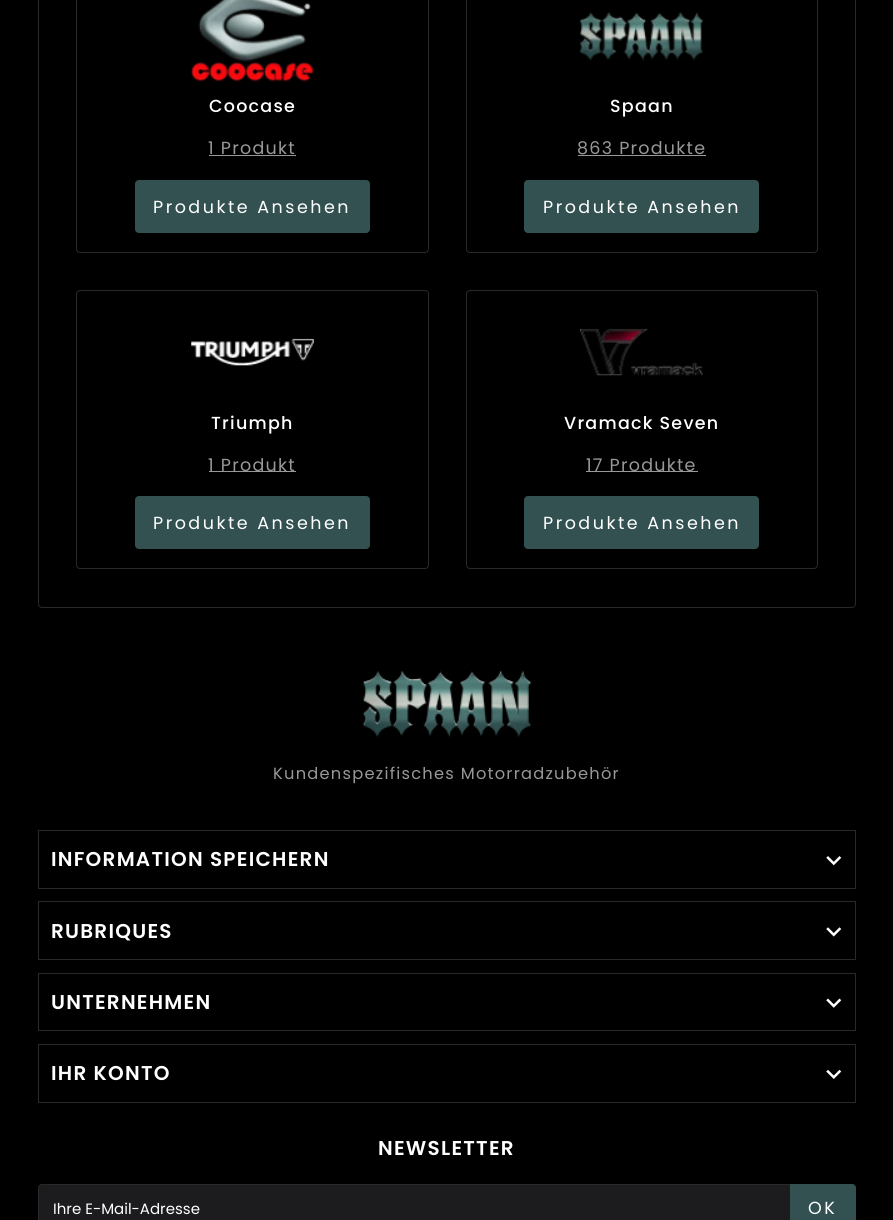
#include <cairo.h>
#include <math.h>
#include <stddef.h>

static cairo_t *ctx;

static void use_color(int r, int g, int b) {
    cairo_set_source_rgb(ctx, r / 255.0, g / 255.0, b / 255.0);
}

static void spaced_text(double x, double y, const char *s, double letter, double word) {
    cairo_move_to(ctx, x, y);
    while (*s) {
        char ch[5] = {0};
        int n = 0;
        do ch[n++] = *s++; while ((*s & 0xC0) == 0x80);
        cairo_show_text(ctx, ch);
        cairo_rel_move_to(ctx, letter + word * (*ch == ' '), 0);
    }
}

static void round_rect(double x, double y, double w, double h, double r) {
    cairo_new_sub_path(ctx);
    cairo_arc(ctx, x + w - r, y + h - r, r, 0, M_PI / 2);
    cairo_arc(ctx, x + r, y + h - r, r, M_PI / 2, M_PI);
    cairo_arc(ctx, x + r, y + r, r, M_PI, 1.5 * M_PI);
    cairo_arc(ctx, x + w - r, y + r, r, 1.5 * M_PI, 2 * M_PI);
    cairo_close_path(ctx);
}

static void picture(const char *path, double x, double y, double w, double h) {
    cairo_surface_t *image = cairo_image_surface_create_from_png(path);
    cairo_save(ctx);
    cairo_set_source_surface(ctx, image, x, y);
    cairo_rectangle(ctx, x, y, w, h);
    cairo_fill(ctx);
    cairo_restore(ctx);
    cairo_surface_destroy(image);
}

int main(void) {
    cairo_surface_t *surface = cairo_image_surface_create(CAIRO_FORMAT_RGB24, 893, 1220);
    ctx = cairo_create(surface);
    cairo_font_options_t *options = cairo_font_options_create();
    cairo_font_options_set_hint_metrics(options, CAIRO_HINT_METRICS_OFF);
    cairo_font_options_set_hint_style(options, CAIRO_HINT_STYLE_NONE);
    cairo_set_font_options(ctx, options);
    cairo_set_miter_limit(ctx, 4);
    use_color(0, 0, 0);
    cairo_paint(ctx);
    round_rect(38.5, -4.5, 817, 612, 3.5);
    use_color(41, 41, 41);
    cairo_set_line_width(ctx, 1);
    cairo_stroke(ctx);
    round_rect(76.5, -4.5, 352, 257, 3.5);
    cairo_stroke(ctx);
    picture("img1.png", 191, 0, 123, 82);
    cairo_select_font_face(ctx, "Poppins Medium", CAIRO_FONT_SLANT_NORMAL, CAIRO_FONT_WEIGHT_NORMAL);
    cairo_set_font_size(ctx, 17.5);
    use_color(255, 255, 255);
    spaced_text(209, 112, "Coocase", 1.25, 0);
    cairo_select_font_face(ctx, "Poppins", CAIRO_FONT_SLANT_NORMAL, CAIRO_FONT_WEIGHT_NORMAL);
    use_color(152, 152, 152);
    spaced_text(208, 154, "1 Produkt", 1.25, 0);
    cairo_rectangle(ctx, 209, 155, 87, 1);
    cairo_fill(ctx);
    use_color(51, 81, 81);
    round_rect(135, 180, 235, 53, 4);
    cairo_fill(ctx);
    use_color(255, 255, 255);
    spaced_text(153, 213, "Produkte Ansehen", 2.5, 0);
    round_rect(466.5, -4.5, 351, 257, 3.5);
    use_color(41, 41, 41);
    cairo_stroke(ctx);
    picture("img2.png", 580, 12, 123, 49);
    cairo_select_font_face(ctx, "Poppins Medium", CAIRO_FONT_SLANT_NORMAL, CAIRO_FONT_WEIGHT_NORMAL);
    use_color(255, 255, 255);
    spaced_text(610, 112, "Spaan", 1.25, 0);
    cairo_select_font_face(ctx, "Poppins", CAIRO_FONT_SLANT_NORMAL, CAIRO_FONT_WEIGHT_NORMAL);
    use_color(152, 152, 152);
    spaced_text(577, 154, "863 Produkte", 1.25, 0);
    cairo_rectangle(ctx, 578, 155, 128, 1);
    cairo_fill(ctx);
    use_color(51, 81, 81);
    round_rect(524, 180, 235, 53, 4);
    cairo_fill(ctx);
    use_color(255, 255, 255);
    spaced_text(543, 213, "Produkte Ansehen", 2.5, 0);
    round_rect(76.5, 290.5, 352, 278, 3.5);
    use_color(41, 41, 41);
    cairo_stroke(ctx);
    picture("img3.png", 191, 338, 123, 28);
    cairo_select_font_face(ctx, "Poppins Medium", CAIRO_FONT_SLANT_NORMAL, CAIRO_FONT_WEIGHT_NORMAL);
    use_color(255, 255, 255);
    spaced_text(211, 429, "Triumph", 1.25, 0);
    use_color(152, 152, 152);
    cairo_rectangle(ctx, 209, 471, 87, 1);
    cairo_fill(ctx);
    cairo_select_font_face(ctx, "Poppins", CAIRO_FONT_SLANT_NORMAL, CAIRO_FONT_WEIGHT_NORMAL);
    spaced_text(208, 471, "1 Produkt", 1.25, 0);
    use_color(51, 81, 81);
    round_rect(135, 496, 235, 53, 4);
    cairo_fill(ctx);
    use_color(255, 255, 255);
    spaced_text(153, 529, "Produkte Ansehen", 2.5, 0);
    round_rect(466.5, 290.5, 351, 278, 3.5);
    use_color(41, 41, 41);
    cairo_stroke(ctx);
    picture("img4.png", 580, 328, 123, 48);
    cairo_select_font_face(ctx, "Poppins Medium", CAIRO_FONT_SLANT_NORMAL, CAIRO_FONT_WEIGHT_NORMAL);
    use_color(255, 255, 255);
    spaced_text(564, 429, "Vramack Seven", 1.25, 0);
    use_color(152, 152, 152);
    cairo_rectangle(ctx, 586, 471, 112, 1);
    cairo_fill(ctx);
    cairo_select_font_face(ctx, "Poppins", CAIRO_FONT_SLANT_NORMAL, CAIRO_FONT_WEIGHT_NORMAL);
    spaced_text(586, 471, "17 Produkte", 1.25, 0);
    use_color(51, 81, 81);
    round_rect(524, 496, 235, 53, 4);
    cairo_fill(ctx);
    use_color(255, 255, 255);
    spaced_text(543, 529, "Produkte Ansehen", 2.5, 0);
    picture("img5.png", 362, 671, 170, 66);
    cairo_set_font_size(ctx, 16.25);
    use_color(152, 152, 152);
    spaced_text(273, 779, "Kundenspezifisches Motorradzubehör", 1.25, 0);
    cairo_rectangle(ctx, 38.5, 830.5, 817, 58);
    use_color(41, 41, 41);
    cairo_stroke(ctx);
    cairo_select_font_face(ctx, "Poppins SemiBold", CAIRO_FONT_SLANT_NORMAL, CAIRO_FONT_WEIGHT_NORMAL);
    cairo_set_font_size(ctx, 20);
    use_color(255, 255, 255);
    spaced_text(51, 866, "INFORMATION SPEICHERN", 1.25, 0);
    picture("img6.png", 826, 856, 16, 10);
    cairo_rectangle(ctx, 38.5, 901.5, 817, 58);
    use_color(41, 41, 41);
    cairo_stroke(ctx);
    use_color(255, 255, 255);
    spaced_text(51, 938, "RUBRIQUES", 1.25, 0);
    picture("img7.png", 826, 927, 16, 10);
    cairo_rectangle(ctx, 38.5, 973.5, 817, 57);
    use_color(41, 41, 41);
    cairo_stroke(ctx);
    use_color(255, 255, 255);
    spaced_text(51, 1009, "UNTERNEHMEN", 1.25, 0);
    picture("img8.png", 826, 998, 16, 10);
    cairo_rectangle(ctx, 38.5, 1044.5, 817, 58);
    use_color(41, 41, 41);
    cairo_stroke(ctx);
    use_color(255, 255, 255);
    spaced_text(51, 1080, "IHR KONTO", 1.25, 0);
    picture("img9.png", 826, 1069, 16, 10);
    spaced_text(378, 1155, "NEWSLETTER", 1.25, 0);
    use_color(28, 28, 30);
    round_rect(38.5, 1184.5, 817, 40, 3.5);
    cairo_fill_preserve(ctx);
    use_color(41, 41, 41);
    cairo_stroke(ctx);
    cairo_select_font_face(ctx, "Poppins", CAIRO_FONT_SLANT_NORMAL, CAIRO_FONT_WEIGHT_NORMAL);
    cairo_set_font_size(ctx, 15);
    use_color(255, 255, 255);
    cairo_move_to(ctx, 53, 1214);
    cairo_show_text(ctx, "Ihre E-Mail-Adresse");
    use_color(51, 81, 81);
    cairo_new_path(ctx);
    cairo_move_to(ctx, 790, 1184);
    cairo_line_to(ctx, 852, 1184);
    cairo_curve_to(ctx, 854, 1184, 856, 1186, 856, 1188);
    cairo_line_to(ctx, 856, 1220);
    cairo_curve_to(ctx, 856, 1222, 854, 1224, 852, 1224);
    cairo_line_to(ctx, 790, 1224);
    cairo_close_path(ctx);
    cairo_fill(ctx);
    cairo_set_font_size(ctx, 17.5);
    use_color(255, 255, 255);
    spaced_text(808, 1214, "OK", 2.5, 0);
    cairo_surface_write_to_png(surface, "result.png");
    cairo_font_options_destroy(options);
    cairo_destroy(ctx);
    cairo_surface_destroy(surface);
    return 0;
}
